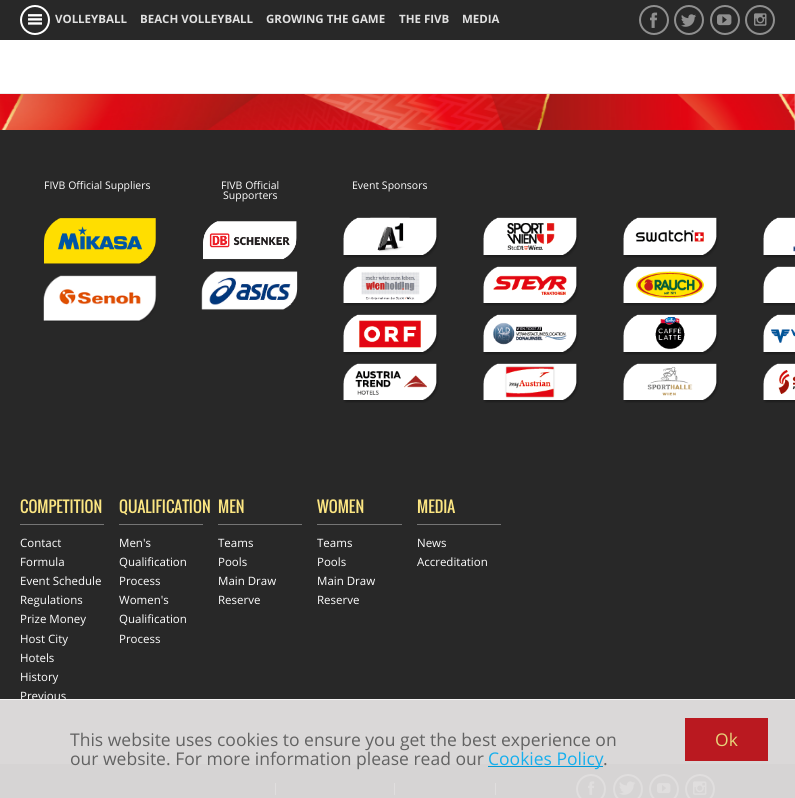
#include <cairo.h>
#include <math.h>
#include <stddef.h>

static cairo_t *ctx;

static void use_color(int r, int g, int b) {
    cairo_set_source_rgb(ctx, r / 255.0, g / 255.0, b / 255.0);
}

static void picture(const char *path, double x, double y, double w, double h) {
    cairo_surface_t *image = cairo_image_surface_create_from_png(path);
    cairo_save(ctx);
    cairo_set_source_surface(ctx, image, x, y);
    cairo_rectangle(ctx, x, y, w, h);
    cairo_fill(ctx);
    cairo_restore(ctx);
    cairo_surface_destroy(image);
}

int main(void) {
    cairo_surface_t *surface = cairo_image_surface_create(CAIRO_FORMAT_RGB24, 795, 798);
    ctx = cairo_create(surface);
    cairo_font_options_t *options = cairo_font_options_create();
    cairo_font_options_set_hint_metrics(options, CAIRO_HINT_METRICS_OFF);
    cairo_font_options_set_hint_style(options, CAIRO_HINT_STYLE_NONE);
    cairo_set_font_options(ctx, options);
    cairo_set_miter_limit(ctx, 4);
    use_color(255, 255, 255);
    cairo_paint(ctx);
    picture("img1.png", 0, 94, 795, 36);
    use_color(40, 40, 40);
    cairo_rectangle(ctx, 0, 0, 795, 40);
    cairo_fill(ctx);
    cairo_arc(ctx, 35, 20, 14, 0, 2 * M_PI);
    use_color(255, 255, 255);
    cairo_stroke(ctx);
    picture("img2.png", 28, 14, 14, 11);
    cairo_select_font_face(ctx, "Open Sans", CAIRO_FONT_SLANT_NORMAL, CAIRO_FONT_WEIGHT_BOLD);
    cairo_set_font_size(ctx, 11.5);
    use_color(224, 224, 224);
    cairo_move_to(ctx, 55, 23);
    cairo_show_text(ctx, "VOLLEYBALL");
    cairo_move_to(ctx, 140, 23);
    cairo_show_text(ctx, "BEACH VOLLEYBALL");
    cairo_move_to(ctx, 266, 23);
    cairo_show_text(ctx, "GROWING THE GAME");
    cairo_move_to(ctx, 399, 23);
    cairo_show_text(ctx, "THE FIVB");
    cairo_move_to(ctx, 462, 23);
    cairo_show_text(ctx, "MEDIA");
    cairo_new_path(ctx);
    cairo_arc(ctx, 654, 20, 14, 0, 2 * M_PI);
    use_color(143, 143, 143);
    cairo_stroke(ctx);
    picture("img3.png", 650, 12, 8, 16);
    cairo_arc(ctx, 689, 20, 14, 0, 2 * M_PI);
    cairo_stroke(ctx);
    picture("img4.png", 681, 14, 15, 13);
    cairo_arc(ctx, 725, 20, 14, 0, 2 * M_PI);
    cairo_stroke(ctx);
    picture("img5.png", 717, 14, 15, 12);
    cairo_arc(ctx, 760, 20, 14, 0, 2 * M_PI);
    cairo_stroke(ctx);
    picture("img6.png", 754, 13, 13, 13);
    use_color(237, 235, 235);
    cairo_rectangle(ctx, 0, 93, 795, 1);
    cairo_fill(ctx);
    use_color(40, 40, 40);
    cairo_rectangle(ctx, 0, 130, 795, 634);
    cairo_fill(ctx);
    cairo_select_font_face(ctx, "Open Sans", CAIRO_FONT_SLANT_NORMAL, CAIRO_FONT_WEIGHT_NORMAL);
    cairo_set_font_size(ctx, 10.5);
    use_color(255, 255, 255);
    cairo_move_to(ctx, 44, 189);
    cairo_show_text(ctx, "FIVB Official Suppliers");
    picture("img7.png", 44, 218, 112, 46);
    picture("img8.png", 43, 275, 114, 47);
    cairo_move_to(ctx, 221, 189);
    cairo_show_text(ctx, "FIVB Official");
    cairo_move_to(ctx, 223, 199);
    cairo_show_text(ctx, "Supporters");
    picture("img9.png", 203, 221, 94, 39);
    picture("img10.png", 201, 271, 97, 39);
    cairo_move_to(ctx, 352, 189);
    cairo_show_text(ctx, "Event Sponsors");
    picture("img11.png", 343, 217, 96, 41);
    picture("img12.png", 343, 266, 96, 40);
    picture("img13.png", 343, 314, 96, 41);
    picture("img14.png", 343, 363, 96, 40);
    picture("img15.png", 483, 217, 96, 41);
    picture("img16.png", 483, 266, 96, 40);
    picture("img17.png", 483, 314, 96, 41);
    picture("img18.png", 483, 363, 96, 40);
    picture("img19.png", 623, 217, 96, 41);
    picture("img20.png", 623, 266, 96, 40);
    picture("img21.png", 623, 314, 96, 41);
    picture("img22.png", 623, 363, 96, 40);
    picture("img23.png", 763, 217, 32, 41);
    picture("img24.png", 763, 266, 32, 40);
    picture("img25.png", 763, 314, 32, 41);
    picture("img26.png", 763, 363, 32, 40);
    use_color(117, 117, 117);
    cairo_rectangle(ctx, 20, 524, 84, 1);
    cairo_fill(ctx);
    cairo_select_font_face(ctx, "Oswald", CAIRO_FONT_SLANT_NORMAL, CAIRO_FONT_WEIGHT_NORMAL);
    cairo_set_font_size(ctx, 15.5);
    use_color(252, 230, 130);
    cairo_move_to(ctx, 20, 513);
    cairo_show_text(ctx, "COMPETITION");
    cairo_select_font_face(ctx, "Open Sans", CAIRO_FONT_SLANT_NORMAL, CAIRO_FONT_WEIGHT_NORMAL);
    cairo_set_font_size(ctx, 11.5);
    use_color(255, 255, 255);
    cairo_move_to(ctx, 20, 547);
    cairo_show_text(ctx, "Contact");
    cairo_move_to(ctx, 20, 566);
    cairo_show_text(ctx, "Formula");
    cairo_move_to(ctx, 20, 585);
    cairo_show_text(ctx, "Event Schedule");
    cairo_move_to(ctx, 20, 604);
    cairo_show_text(ctx, "Regulations");
    cairo_move_to(ctx, 20, 623);
    cairo_show_text(ctx, "Prize Money");
    cairo_move_to(ctx, 20, 643);
    cairo_show_text(ctx, "Host City");
    cairo_move_to(ctx, 20, 662);
    cairo_show_text(ctx, "Hotels");
    cairo_move_to(ctx, 20, 681);
    cairo_show_text(ctx, "History");
    cairo_move_to(ctx, 20, 700);
    cairo_show_text(ctx, "Previous");
    use_color(117, 117, 117);
    cairo_rectangle(ctx, 119, 524, 84, 1);
    cairo_fill(ctx);
    cairo_select_font_face(ctx, "Oswald", CAIRO_FONT_SLANT_NORMAL, CAIRO_FONT_WEIGHT_NORMAL);
    cairo_set_font_size(ctx, 15.5);
    use_color(252, 230, 130);
    cairo_move_to(ctx, 119, 513);
    cairo_show_text(ctx, "QUALIFICATION");
    cairo_select_font_face(ctx, "Open Sans", CAIRO_FONT_SLANT_NORMAL, CAIRO_FONT_WEIGHT_NORMAL);
    cairo_set_font_size(ctx, 11.5);
    use_color(255, 255, 255);
    cairo_move_to(ctx, 119, 547);
    cairo_show_text(ctx, "Men's");
    cairo_move_to(ctx, 119, 566);
    cairo_show_text(ctx, "Qualification");
    cairo_move_to(ctx, 119, 585);
    cairo_show_text(ctx, "Process");
    cairo_move_to(ctx, 119, 604);
    cairo_show_text(ctx, "Women's");
    cairo_move_to(ctx, 119, 623);
    cairo_show_text(ctx, "Qualification");
    cairo_move_to(ctx, 119, 643);
    cairo_show_text(ctx, "Process");
    use_color(117, 117, 117);
    cairo_rectangle(ctx, 218, 524, 84, 1);
    cairo_fill(ctx);
    cairo_select_font_face(ctx, "Oswald", CAIRO_FONT_SLANT_NORMAL, CAIRO_FONT_WEIGHT_NORMAL);
    cairo_set_font_size(ctx, 15.5);
    use_color(252, 230, 130);
    cairo_move_to(ctx, 218, 513);
    cairo_show_text(ctx, "MEN");
    cairo_select_font_face(ctx, "Open Sans", CAIRO_FONT_SLANT_NORMAL, CAIRO_FONT_WEIGHT_NORMAL);
    cairo_set_font_size(ctx, 11.5);
    use_color(255, 255, 255);
    cairo_move_to(ctx, 218, 547);
    cairo_show_text(ctx, "Teams");
    cairo_move_to(ctx, 218, 566);
    cairo_show_text(ctx, "Pools");
    cairo_move_to(ctx, 218, 585);
    cairo_show_text(ctx, "Main Draw");
    cairo_move_to(ctx, 218, 604);
    cairo_show_text(ctx, "Reserve");
    use_color(117, 117, 117);
    cairo_rectangle(ctx, 317, 524, 85, 1);
    cairo_fill(ctx);
    cairo_select_font_face(ctx, "Oswald", CAIRO_FONT_SLANT_NORMAL, CAIRO_FONT_WEIGHT_NORMAL);
    cairo_set_font_size(ctx, 15.5);
    use_color(252, 230, 130);
    cairo_move_to(ctx, 317, 513);
    cairo_show_text(ctx, "WOMEN");
    cairo_select_font_face(ctx, "Open Sans", CAIRO_FONT_SLANT_NORMAL, CAIRO_FONT_WEIGHT_NORMAL);
    cairo_set_font_size(ctx, 11.5);
    use_color(255, 255, 255);
    cairo_move_to(ctx, 317, 547);
    cairo_show_text(ctx, "Teams");
    cairo_move_to(ctx, 317, 566);
    cairo_show_text(ctx, "Pools");
    cairo_move_to(ctx, 317, 585);
    cairo_show_text(ctx, "Main Draw");
    cairo_move_to(ctx, 317, 604);
    cairo_show_text(ctx, "Reserve");
    use_color(117, 117, 117);
    cairo_rectangle(ctx, 417, 524, 84, 1);
    cairo_fill(ctx);
    cairo_select_font_face(ctx, "Oswald", CAIRO_FONT_SLANT_NORMAL, CAIRO_FONT_WEIGHT_NORMAL);
    cairo_set_font_size(ctx, 15.5);
    use_color(252, 230, 130);
    cairo_move_to(ctx, 417, 513);
    cairo_show_text(ctx, "MEDIA");
    cairo_select_font_face(ctx, "Open Sans", CAIRO_FONT_SLANT_NORMAL, CAIRO_FONT_WEIGHT_NORMAL);
    cairo_set_font_size(ctx, 11.5);
    use_color(255, 255, 255);
    cairo_move_to(ctx, 417, 547);
    cairo_show_text(ctx, "News");
    cairo_move_to(ctx, 417, 566);
    cairo_show_text(ctx, "Accreditation");
    use_color(0, 0, 0);
    cairo_rectangle(ctx, 0, 764, 795, 34);
    cairo_fill(ctx);
    use_color(101, 101, 101);
    cairo_rectangle(ctx, 275, 783, 1, 12);
    cairo_fill(ctx);
    cairo_rectangle(ctx, 394, 783, 1, 12);
    cairo_fill(ctx);
    cairo_rectangle(ctx, 495, 783, 1, 12);
    cairo_fill(ctx);
    cairo_arc(ctx, 591, 789, 14, 0, 2 * M_PI);
    cairo_stroke(ctx);
    picture("img27.png", 588, 781, 7, 14);
    cairo_arc(ctx, 628, 789, 14, 0, 2 * M_PI);
    cairo_stroke(ctx);
    picture("img28.png", 619, 781, 17, 14);
    cairo_arc(ctx, 664, 789, 14, 0, 2 * M_PI);
    cairo_stroke(ctx);
    picture("img29.png", 657, 783, 14, 11);
    cairo_arc(ctx, 700, 789, 14, 0, 2 * M_PI);
    cairo_stroke(ctx);
    picture("img30.png", 693, 781, 14, 14);
    cairo_set_source_rgba(ctx, 0.929, 0.922, 0.922, 0.9);
    cairo_rectangle(ctx, 0, 699, 795, 99);
    cairo_fill(ctx);
    cairo_set_source_rgba(ctx, 0.965, 0.961, 0.961, 0.9);
    cairo_rectangle(ctx, 0, 699, 795, 1);
    cairo_fill(ctx);
    cairo_set_font_size(ctx, 17.5);
    use_color(98, 98, 98);
    cairo_move_to(ctx, 70, 746);
    cairo_show_text(ctx, "This website uses cookies to ensure you get the best experience on");
    cairo_move_to(ctx, 70, 765);
    cairo_show_text(ctx, "our website. For more information please read our");
    use_color(0, 154, 216);
    cairo_rectangle(ctx, 488, 766, 115, 1);
    cairo_fill(ctx);
    use_color(22, 175, 237);
    cairo_move_to(ctx, 488, 765);
    cairo_show_text(ctx, "Cookies Policy");
    use_color(98, 98, 98);
    cairo_move_to(ctx, 603, 765);
    cairo_show_text(ctx, ".");
    use_color(186, 25, 32);
    cairo_rectangle(ctx, 685, 718, 83, 43);
    cairo_fill(ctx);
    use_color(231, 211, 121);
    cairo_move_to(ctx, 715, 746);
    cairo_show_text(ctx, "Ok");
    cairo_surface_write_to_png(surface, "result.png");
    cairo_font_options_destroy(options);
    cairo_destroy(ctx);
    cairo_surface_destroy(surface);
    return 0;
}
